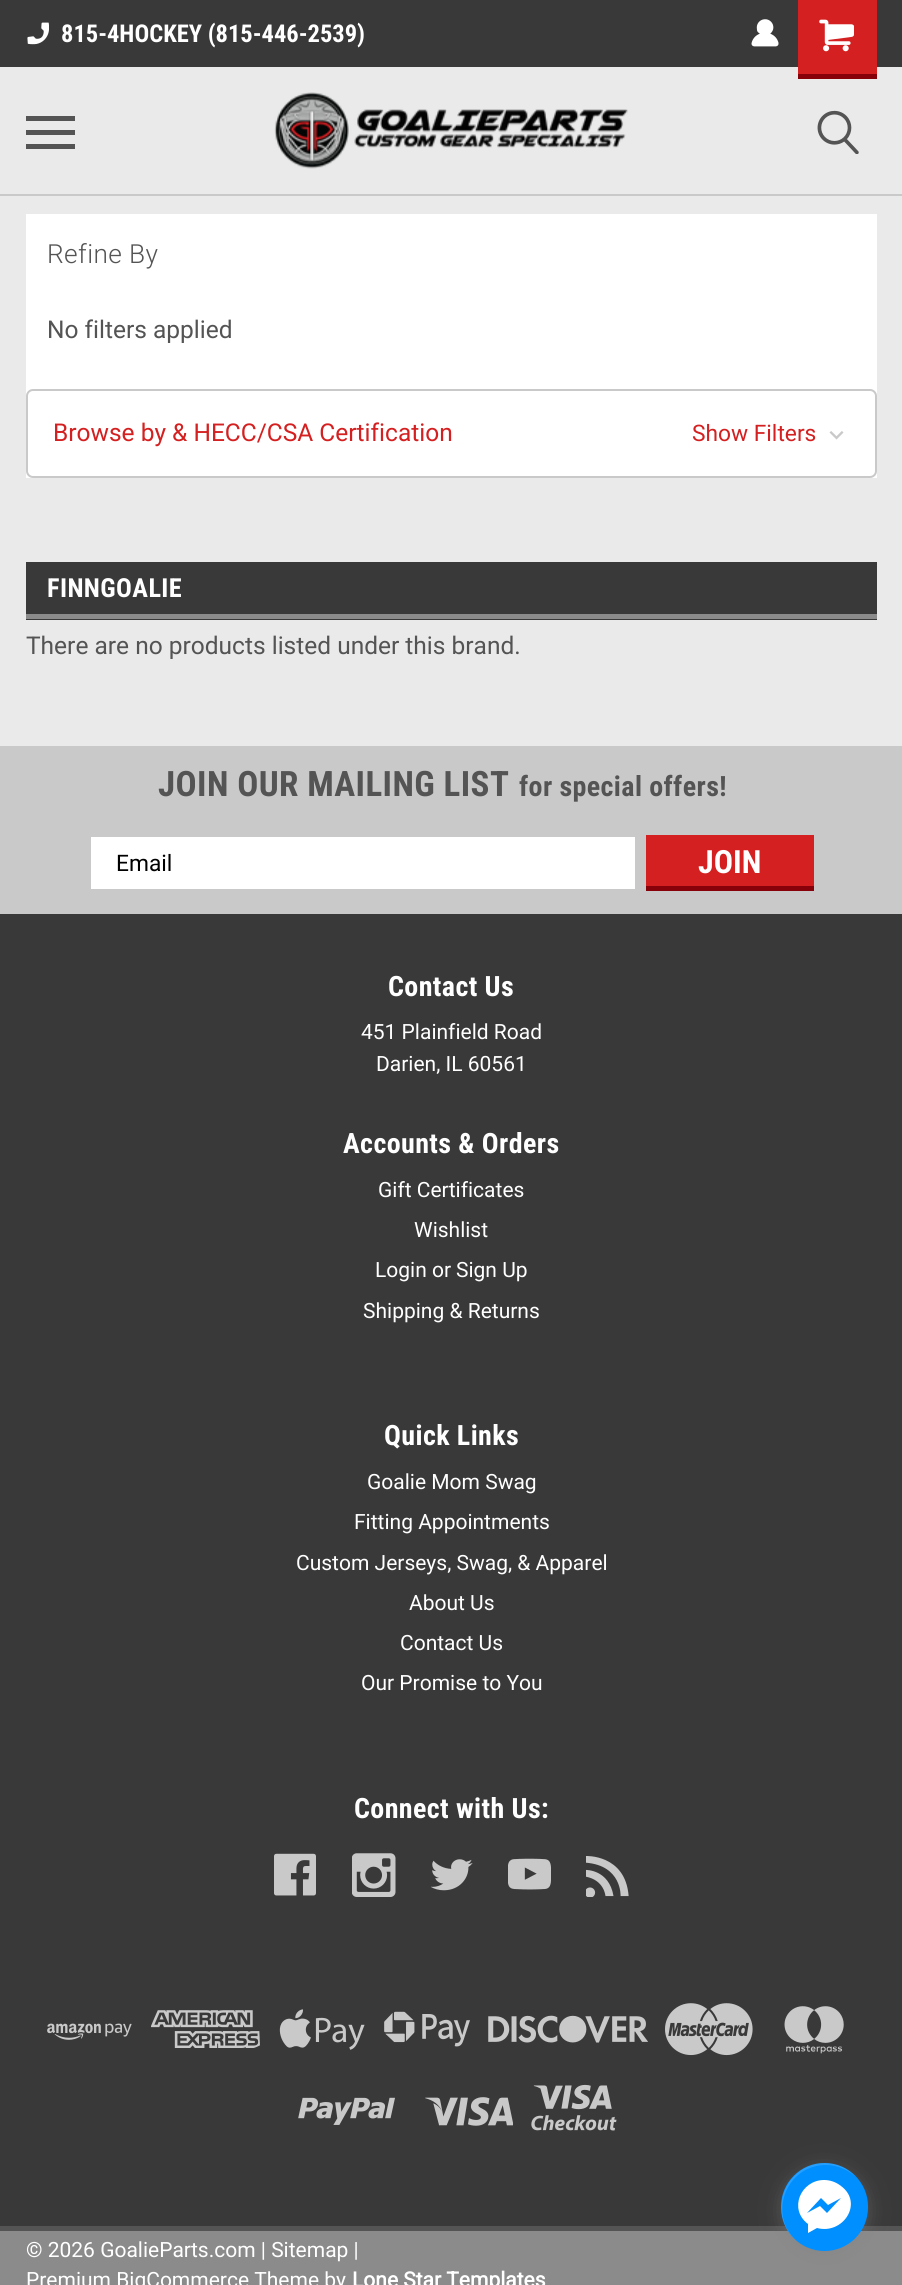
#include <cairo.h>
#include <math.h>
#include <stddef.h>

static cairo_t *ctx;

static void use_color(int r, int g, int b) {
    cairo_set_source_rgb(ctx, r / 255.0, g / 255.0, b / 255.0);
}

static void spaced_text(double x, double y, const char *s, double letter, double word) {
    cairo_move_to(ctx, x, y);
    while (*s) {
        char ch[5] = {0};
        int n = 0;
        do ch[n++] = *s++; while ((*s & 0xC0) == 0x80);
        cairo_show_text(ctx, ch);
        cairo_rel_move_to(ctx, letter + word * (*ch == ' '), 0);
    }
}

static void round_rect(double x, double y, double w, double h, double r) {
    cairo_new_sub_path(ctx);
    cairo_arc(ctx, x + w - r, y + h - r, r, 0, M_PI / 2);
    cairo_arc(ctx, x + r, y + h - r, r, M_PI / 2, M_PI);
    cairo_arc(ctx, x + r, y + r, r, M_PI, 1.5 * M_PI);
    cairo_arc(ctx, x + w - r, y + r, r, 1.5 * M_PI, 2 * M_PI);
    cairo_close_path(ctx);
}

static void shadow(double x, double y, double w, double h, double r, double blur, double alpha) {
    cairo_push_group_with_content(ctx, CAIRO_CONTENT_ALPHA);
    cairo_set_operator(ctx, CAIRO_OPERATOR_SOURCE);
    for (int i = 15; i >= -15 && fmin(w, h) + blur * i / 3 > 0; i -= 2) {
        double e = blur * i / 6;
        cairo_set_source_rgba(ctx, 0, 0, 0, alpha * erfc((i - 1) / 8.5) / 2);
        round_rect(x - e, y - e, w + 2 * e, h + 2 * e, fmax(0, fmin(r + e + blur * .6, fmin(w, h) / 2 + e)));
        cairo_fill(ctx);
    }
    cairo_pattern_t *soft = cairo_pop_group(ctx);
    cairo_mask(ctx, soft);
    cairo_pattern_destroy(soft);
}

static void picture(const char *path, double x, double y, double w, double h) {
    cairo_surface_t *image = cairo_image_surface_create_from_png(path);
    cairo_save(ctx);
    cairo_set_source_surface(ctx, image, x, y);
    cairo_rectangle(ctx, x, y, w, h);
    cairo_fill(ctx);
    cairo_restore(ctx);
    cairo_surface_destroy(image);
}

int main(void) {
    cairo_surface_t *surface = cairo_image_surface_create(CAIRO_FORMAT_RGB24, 902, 2285);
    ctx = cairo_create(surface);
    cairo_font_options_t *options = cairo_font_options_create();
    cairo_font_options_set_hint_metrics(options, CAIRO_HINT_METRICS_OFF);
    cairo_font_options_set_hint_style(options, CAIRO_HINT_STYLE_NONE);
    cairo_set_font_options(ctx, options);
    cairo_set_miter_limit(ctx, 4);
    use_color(234, 234, 234);
    cairo_paint(ctx);
    use_color(202, 201, 201);
    cairo_rectangle(ctx, 0, 194, 902, 2);
    cairo_fill(ctx);
    use_color(57, 57, 57);
    cairo_rectangle(ctx, 0, 0, 902, 67);
    cairo_fill(ctx);
    picture("img1.png", 27, 22, 22, 23);
    cairo_select_font_face(ctx, "Roboto Condensed", CAIRO_FONT_SLANT_NORMAL, CAIRO_FONT_WEIGHT_BOLD);
    cairo_set_font_size(ctx, 24.5);
    use_color(255, 255, 255);
    cairo_move_to(ctx, 61, 42);
    cairo_show_text(ctx, "815-4HOCKEY (815-446-2539)");
    picture("img2.png", 751, 19, 28, 28);
    use_color(212, 32, 32);
    cairo_rectangle(ctx, 798, 0, 79, 74);
    cairo_fill(ctx);
    use_color(134, 1, 9);
    cairo_rectangle(ctx, 798, 74, 79, 5);
    cairo_fill(ctx);
    picture("img3.png", 819, 19, 35, 33);
    use_color(84, 84, 84);
    cairo_rectangle(ctx, 26, 130, 49, 5);
    cairo_fill(ctx);
    cairo_rectangle(ctx, 26, 116, 49, 5);
    cairo_fill(ctx);
    cairo_rectangle(ctx, 26, 144, 49, 5);
    cairo_fill(ctx);
    picture("img4.png", 274, 92, 354, 77);
    picture("img5.png", 817, 110, 42, 44);
    use_color(255, 255, 255);
    cairo_rectangle(ctx, 26, 214, 851, 264);
    cairo_fill(ctx);
    cairo_select_font_face(ctx, "Roboto Light", CAIRO_FONT_SLANT_NORMAL, CAIRO_FONT_WEIGHT_NORMAL);
    cairo_set_font_size(ctx, 26.25);
    use_color(84, 84, 84);
    spaced_text(47, 263, "Refine By", 0.4, 0);
    cairo_select_font_face(ctx, "Roboto", CAIRO_FONT_SLANT_NORMAL, CAIRO_FONT_WEIGHT_NORMAL);
    cairo_set_font_size(ctx, 24.5);
    cairo_move_to(ctx, 47, 338);
    cairo_show_text(ctx, "No filters applied");
    round_rect(27, 390, 849, 87, 6);
    use_color(202, 201, 201);
    cairo_stroke(ctx);
    use_color(212, 32, 32);
    cairo_move_to(ctx, 53, 441);
    cairo_show_text(ctx, "Browse by & HECC/CSA Certification");
    cairo_set_font_size(ctx, 22.75);
    cairo_move_to(ctx, 692, 441);
    cairo_show_text(ctx, "Show Filters");
    picture("img6.png", 829, 431, 15, 9);
    use_color(57, 57, 57);
    cairo_rectangle(ctx, 26, 562, 851, 58);
    cairo_fill(ctx);
    use_color(139, 139, 139);
    cairo_rectangle(ctx, 26, 614, 851, 5);
    cairo_fill(ctx);
    cairo_select_font_face(ctx, "Roboto Condensed", CAIRO_FONT_SLANT_NORMAL, CAIRO_FONT_WEIGHT_BOLD);
    cairo_set_font_size(ctx, 26.25);
    use_color(255, 255, 255);
    spaced_text(47, 597, "FINNGOALIE", 0.4, 0);
    cairo_select_font_face(ctx, "Roboto", CAIRO_FONT_SLANT_NORMAL, CAIRO_FONT_WEIGHT_NORMAL);
    cairo_set_font_size(ctx, 24.5);
    use_color(84, 84, 84);
    cairo_move_to(ctx, 26, 654);
    cairo_show_text(ctx, "There are no products listed under this brand.");
    use_color(57, 57, 57);
    cairo_rectangle(ctx, 0, 914, 902, 1312);
    cairo_fill(ctx);
    use_color(202, 201, 201);
    cairo_rectangle(ctx, 0, 746, 902, 168);
    cairo_fill(ctx);
    cairo_select_font_face(ctx, "Roboto Condensed", CAIRO_FONT_SLANT_NORMAL, CAIRO_FONT_WEIGHT_BOLD);
    cairo_set_font_size(ctx, 35);
    use_color(84, 84, 84);
    spaced_text(158, 796, "JOIN OUR MAILING LIST", 0.4, 0);
    cairo_set_font_size(ctx, 28);
    spaced_text(519, 796, "for special offers!", 0.4, 0);
    use_color(255, 255, 255);
    cairo_rectangle(ctx, 91, 837, 544, 52);
    cairo_fill(ctx);
    cairo_select_font_face(ctx, "Roboto", CAIRO_FONT_SLANT_NORMAL, CAIRO_FONT_WEIGHT_NORMAL);
    cairo_set_font_size(ctx, 22.75);
    use_color(0, 0, 0);
    cairo_move_to(ctx, 116, 871);
    cairo_show_text(ctx, "Email");
    use_color(212, 32, 32);
    cairo_rectangle(ctx, 646, 835, 168, 51);
    cairo_fill(ctx);
    use_color(134, 1, 9);
    cairo_rectangle(ctx, 646, 886, 168, 5);
    cairo_fill(ctx);
    cairo_select_font_face(ctx, "Roboto Condensed", CAIRO_FONT_SLANT_NORMAL, CAIRO_FONT_WEIGHT_BOLD);
    cairo_set_font_size(ctx, 32);
    use_color(255, 255, 255);
    cairo_move_to(ctx, 698, 873);
    cairo_show_text(ctx, "JOIN");
    cairo_set_font_size(ctx, 28);
    spaced_text(388, 996, "Contact Us", 0.4, 0);
    cairo_select_font_face(ctx, "Roboto", CAIRO_FONT_SLANT_NORMAL, CAIRO_FONT_WEIGHT_NORMAL);
    cairo_set_font_size(ctx, 21);
    cairo_move_to(ctx, 361, 1039);
    cairo_show_text(ctx, "451 Plainfield Road");
    cairo_move_to(ctx, 376, 1071);
    cairo_show_text(ctx, "Darien, IL 60561");
    cairo_select_font_face(ctx, "Roboto Condensed", CAIRO_FONT_SLANT_NORMAL, CAIRO_FONT_WEIGHT_BOLD);
    cairo_set_font_size(ctx, 28);
    spaced_text(343, 1153, "Accounts & Orders", 0.4, 0);
    cairo_select_font_face(ctx, "Roboto", CAIRO_FONT_SLANT_NORMAL, CAIRO_FONT_WEIGHT_NORMAL);
    cairo_set_font_size(ctx, 21);
    cairo_move_to(ctx, 378, 1197);
    cairo_show_text(ctx, "Gift Certificates");
    cairo_move_to(ctx, 414, 1237);
    cairo_show_text(ctx, "Wishlist");
    cairo_move_to(ctx, 375, 1277);
    cairo_show_text(ctx, "Login or");
    cairo_move_to(ctx, 456, 1277);
    cairo_show_text(ctx, "Sign Up");
    cairo_move_to(ctx, 363, 1318);
    cairo_show_text(ctx, "Shipping & Returns");
    cairo_select_font_face(ctx, "Roboto Condensed", CAIRO_FONT_SLANT_NORMAL, CAIRO_FONT_WEIGHT_BOLD);
    cairo_set_font_size(ctx, 28);
    spaced_text(384, 1445, "Quick Links", 0.4, 0);
    cairo_select_font_face(ctx, "Roboto", CAIRO_FONT_SLANT_NORMAL, CAIRO_FONT_WEIGHT_NORMAL);
    cairo_set_font_size(ctx, 21);
    cairo_move_to(ctx, 367, 1489);
    cairo_show_text(ctx, "Goalie Mom Swag");
    cairo_move_to(ctx, 354, 1529);
    cairo_show_text(ctx, "Fitting Appointments");
    cairo_move_to(ctx, 296, 1570);
    cairo_show_text(ctx, "Custom Jerseys, Swag, & Apparel");
    cairo_move_to(ctx, 409, 1610);
    cairo_show_text(ctx, "About Us");
    cairo_move_to(ctx, 400, 1650);
    cairo_show_text(ctx, "Contact Us");
    cairo_move_to(ctx, 361, 1690);
    cairo_show_text(ctx, "Our Promise to You");
    cairo_select_font_face(ctx, "Roboto Condensed", CAIRO_FONT_SLANT_NORMAL, CAIRO_FONT_WEIGHT_BOLD);
    cairo_set_font_size(ctx, 28);
    spaced_text(354, 1818, "Connect with Us:", 0.4, 0);
    picture("img7.png", 274, 1853, 42, 43);
    picture("img8.png", 352, 1853, 44, 44);
    picture("img9.png", 431, 1859, 42, 32);
    picture("img10.png", 508, 1858, 43, 32);
    picture("img11.png", 586, 1856, 43, 41);
    picture("img12.png", 47, 2023, 85, 17);
    picture("img13.png", 151, 2010, 109, 38);
    picture("img14.png", 279, 2009, 86, 41);
    picture("img15.png", 384, 2011, 86, 36);
    picture("img16.png", 488, 2015, 160, 28);
    picture("img17.png", 665, 2003, 88, 53);
    picture("img18.png", 784, 2006, 60, 48);
    picture("img19.png", 298, 2097, 97, 28);
    picture("img20.png", 425, 2097, 88, 29);
    picture("img21.png", 531, 2084, 86, 47);
    use_color(139, 139, 139);
    cairo_rectangle(ctx, 0, 2231, 902, 54);
    cairo_fill(ctx);
    use_color(84, 84, 84);
    cairo_rectangle(ctx, 0, 2226, 902, 5);
    cairo_fill(ctx);
    cairo_select_font_face(ctx, "Roboto", CAIRO_FONT_SLANT_NORMAL, CAIRO_FONT_WEIGHT_NORMAL);
    cairo_set_font_size(ctx, 21);
    use_color(255, 255, 255);
    cairo_move_to(ctx, 26, 2257);
    cairo_show_text(ctx, "© 2026 GoalieParts.com | Sitemap |");
    cairo_move_to(ctx, 26, 2287);
    cairo_show_text(ctx, "Premium BigCommerce Theme by");
    cairo_select_font_face(ctx, "Roboto", CAIRO_FONT_SLANT_NORMAL, CAIRO_FONT_WEIGHT_BOLD);
    cairo_move_to(ctx, 352, 2287);
    cairo_show_text(ctx, "Lone Star Templates");
    use_color(128, 128, 128);
    shadow(781, 2167, 87, 87, 43.5, 9.5, 0.4);
    use_color(0, 143, 255);
    round_rect(781, 2163, 87, 88, 43.5);
    cairo_fill(ctx);
    cairo_set_source_rgba(ctx, 1, 1, 1, 0.15);
    cairo_new_path(ctx);
    cairo_move_to(ctx, 826, 2165);
    cairo_curve_to(ctx, 838, 2165, 848, 2170, 856, 2177);
    cairo_curve_to(ctx, 840, 2159, 811, 2158, 794, 2176);
    cairo_curve_to(ctx, 776, 2194, 777, 2225, 797, 2241);
    cairo_curve_to(ctx, 767, 2215, 786, 2165, 826, 2165);
    cairo_close_path(ctx);
    cairo_fill(ctx);
    use_color(255, 255, 255);
    cairo_new_path(ctx);
    cairo_move_to(ctx, 824, 2180);
    cairo_curve_to(ctx, 801, 2180, 788, 2209, 808, 2224);
    cairo_line_to(ctx, 808, 2233);
    cairo_line_to(ctx, 817, 2228);
    cairo_curve_to(ctx, 843, 2235, 864, 2203, 841, 2186);
    cairo_curve_to(ctx, 836, 2182, 830, 2180, 824, 2180);
    cairo_close_path(ctx);
    cairo_move_to(ctx, 827, 2213);
    cairo_line_to(ctx, 820, 2206);
    cairo_line_to(ctx, 807, 2213);
    cairo_line_to(ctx, 821, 2198);
    cairo_line_to(ctx, 828, 2205);
    cairo_line_to(ctx, 841, 2198);
    cairo_close_path(ctx);
    cairo_fill(ctx);
    cairo_surface_write_to_png(surface, "result.png");
    cairo_font_options_destroy(options);
    cairo_destroy(ctx);
    cairo_surface_destroy(surface);
    return 0;
}
